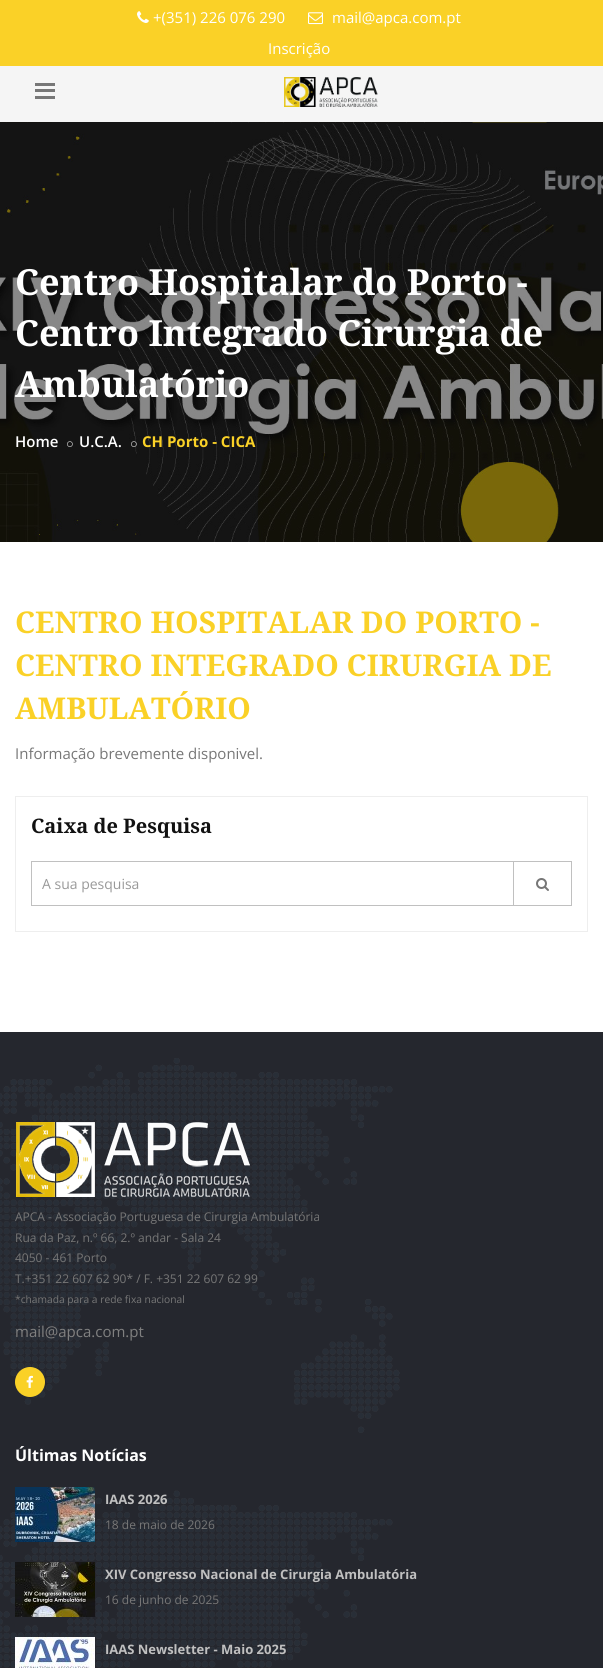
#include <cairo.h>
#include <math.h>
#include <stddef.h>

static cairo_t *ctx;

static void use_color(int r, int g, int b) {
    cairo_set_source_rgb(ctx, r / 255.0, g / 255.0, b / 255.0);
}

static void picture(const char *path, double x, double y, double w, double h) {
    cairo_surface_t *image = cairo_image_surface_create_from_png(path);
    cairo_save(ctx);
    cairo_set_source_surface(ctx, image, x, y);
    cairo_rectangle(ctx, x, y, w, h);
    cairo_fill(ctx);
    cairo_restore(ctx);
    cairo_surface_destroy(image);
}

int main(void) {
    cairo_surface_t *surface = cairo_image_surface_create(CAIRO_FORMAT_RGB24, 603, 1668);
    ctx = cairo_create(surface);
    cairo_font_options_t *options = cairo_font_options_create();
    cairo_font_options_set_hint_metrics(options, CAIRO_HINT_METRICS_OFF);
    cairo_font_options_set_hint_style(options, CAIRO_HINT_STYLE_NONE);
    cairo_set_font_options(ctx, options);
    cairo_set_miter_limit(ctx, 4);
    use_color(255, 255, 255);
    cairo_paint(ctx);
    use_color(250, 209, 39);
    cairo_rectangle(ctx, 0, 0, 603, 66);
    cairo_fill(ctx);
    picture("img1.png", 137, 11, 12, 12);
    cairo_select_font_face(ctx, "Open Sans", CAIRO_FONT_SLANT_NORMAL, CAIRO_FONT_WEIGHT_NORMAL);
    cairo_set_font_size(ctx, 15);
    use_color(255, 255, 255);
    cairo_move_to(ctx, 153, 23);
    cairo_show_text(ctx, "+(351) 226 076 290");
    picture("img2.png", 308, 12, 15, 13);
    cairo_move_to(ctx, 332, 23);
    cairo_show_text(ctx, "mail@apca.com.pt");
    cairo_move_to(ctx, 268, 54);
    cairo_show_text(ctx, "Inscrição");
    use_color(245, 245, 245);
    cairo_rectangle(ctx, 0, 66, 603, 56);
    cairo_fill(ctx);
    use_color(119, 119, 119);
    cairo_rectangle(ctx, 35, 83, 20, 3);
    cairo_fill(ctx);
    cairo_rectangle(ctx, 35, 89, 20, 3);
    cairo_fill(ctx);
    cairo_rectangle(ctx, 35, 96, 20, 3);
    cairo_fill(ctx);
    picture("img3.png", 284, 77, 94, 30);
    picture("img4.png", 0, 122, 603, 420);
    cairo_select_font_face(ctx, "Droid Serif", CAIRO_FONT_SLANT_NORMAL, CAIRO_FONT_WEIGHT_BOLD);
    cairo_set_font_size(ctx, 36);
    use_color(255, 255, 255);
    cairo_move_to(ctx, 15, 295);
    cairo_show_text(ctx, "Centro Hospitalar do Porto -");
    cairo_move_to(ctx, 15, 346);
    cairo_show_text(ctx, "Centro Integrado Cirurgia de");
    cairo_move_to(ctx, 15, 397);
    cairo_show_text(ctx, "Ambulatório");
    cairo_select_font_face(ctx, "Open Sans SemiBold", CAIRO_FONT_SLANT_NORMAL, CAIRO_FONT_WEIGHT_NORMAL);
    cairo_set_font_size(ctx, 15);
    cairo_move_to(ctx, 15, 447);
    cairo_show_text(ctx, "Home");
    picture("img5.png", 67, 441, 6, 6);
    cairo_move_to(ctx, 79, 447);
    cairo_show_text(ctx, "U.C.A.");
    picture("img6.png", 131, 441, 6, 6);
    cairo_select_font_face(ctx, "Open Sans", CAIRO_FONT_SLANT_NORMAL, CAIRO_FONT_WEIGHT_BOLD);
    use_color(250, 209, 39);
    cairo_move_to(ctx, 142, 447);
    cairo_show_text(ctx, "CH Porto - CICA");
    cairo_select_font_face(ctx, "Droid Serif", CAIRO_FONT_SLANT_NORMAL, CAIRO_FONT_WEIGHT_BOLD);
    cairo_set_font_size(ctx, 30);
    cairo_move_to(ctx, 15, 633);
    cairo_show_text(ctx, "CENTRO HOSPITALAR DO PORTO -");
    cairo_move_to(ctx, 15, 676);
    cairo_show_text(ctx, "CENTRO INTEGRADO CIRURGIA DE");
    cairo_move_to(ctx, 15, 719);
    cairo_show_text(ctx, "AMBULATÓRIO");
    cairo_select_font_face(ctx, "Open Sans", CAIRO_FONT_SLANT_NORMAL, CAIRO_FONT_WEIGHT_NORMAL);
    cairo_set_font_size(ctx, 15);
    use_color(119, 119, 119);
    cairo_move_to(ctx, 15, 759);
    cairo_show_text(ctx, "Informação brevemente disponivel.");
    cairo_rectangle(ctx, 15.5, 796.5, 572, 135);
    use_color(238, 238, 238);
    cairo_set_line_width(ctx, 1);
    cairo_stroke(ctx);
    cairo_select_font_face(ctx, "Droid Serif", CAIRO_FONT_SLANT_NORMAL, CAIRO_FONT_WEIGHT_BOLD);
    cairo_set_font_size(ctx, 20);
    use_color(17, 17, 17);
    cairo_move_to(ctx, 31, 833);
    cairo_show_text(ctx, "Caixa de Pesquisa");
    cairo_rectangle(ctx, 31.5, 861.5, 482, 44);
    use_color(192, 192, 192);
    cairo_stroke(ctx);
    cairo_select_font_face(ctx, "Open Sans", CAIRO_FONT_SLANT_NORMAL, CAIRO_FONT_WEIGHT_NORMAL);
    cairo_set_font_size(ctx, 14);
    use_color(153, 153, 153);
    cairo_move_to(ctx, 42, 889);
    cairo_show_text(ctx, "A sua pesquisa");
    cairo_rectangle(ctx, 513.5, 861.5, 58, 44);
    use_color(192, 192, 192);
    cairo_stroke(ctx);
    picture("img7.png", 536, 878, 13, 13);
    use_color(37, 39, 46);
    cairo_rectangle(ctx, 0, 1032, 603, 636);
    cairo_fill(ctx);
    picture("img8.png", 0, 1058, 400, 610);
    picture("img9.png", 16, 1122, 234, 75);
    cairo_set_font_size(ctx, 12);
    use_color(119, 119, 119);
    cairo_move_to(ctx, 15, 1221);
    cairo_show_text(ctx, "APCA - Associação Portuguesa de Cirurgia Ambulatória");
    cairo_move_to(ctx, 15, 1242);
    cairo_show_text(ctx, "Rua da Paz, n.º 66, 2.º andar - Sala 24");
    cairo_move_to(ctx, 15, 1262);
    cairo_show_text(ctx, "4050 - 461 Porto");
    cairo_move_to(ctx, 15, 1283);
    cairo_show_text(ctx, "T.+351 22 607 62 90* / F. +351 22 607 62 99");
    cairo_set_font_size(ctx, 10.25);
    cairo_move_to(ctx, 15, 1303);
    cairo_show_text(ctx, "*chamada para a rede fixa nacional");
    cairo_set_font_size(ctx, 15);
    use_color(128, 128, 128);
    cairo_move_to(ctx, 15, 1337);
    cairo_show_text(ctx, "mail@apca.com.pt");
    use_color(250, 209, 39);
    cairo_new_path(ctx);
    cairo_arc(ctx, 30, 1382, 15, 0, 2 * M_PI);
    cairo_fill(ctx);
    picture("img10.png", 26, 1375, 7, 13);
    cairo_select_font_face(ctx, "Open Sans", CAIRO_FONT_SLANT_NORMAL, CAIRO_FONT_WEIGHT_BOLD);
    cairo_set_font_size(ctx, 16);
    use_color(255, 255, 255);
    cairo_move_to(ctx, 15, 1461);
    cairo_show_text(ctx, "Últimas Notícias");
    picture("img11.png", 15, 1487, 80, 55);
    cairo_set_font_size(ctx, 13);
    use_color(192, 192, 192);
    cairo_move_to(ctx, 105, 1504);
    cairo_show_text(ctx, "IAAS 2026");
    cairo_select_font_face(ctx, "Open Sans", CAIRO_FONT_SLANT_NORMAL, CAIRO_FONT_WEIGHT_NORMAL);
    cairo_set_font_size(ctx, 12);
    use_color(119, 119, 119);
    cairo_move_to(ctx, 105, 1529);
    cairo_show_text(ctx, "18 de maio de 2026");
    picture("img12.png", 15, 1562, 80, 55);
    cairo_select_font_face(ctx, "Open Sans", CAIRO_FONT_SLANT_NORMAL, CAIRO_FONT_WEIGHT_BOLD);
    cairo_set_font_size(ctx, 13);
    use_color(192, 192, 192);
    cairo_move_to(ctx, 105, 1579);
    cairo_show_text(ctx, "XIV Congresso Nacional de Cirurgia Ambulatória");
    cairo_select_font_face(ctx, "Open Sans", CAIRO_FONT_SLANT_NORMAL, CAIRO_FONT_WEIGHT_NORMAL);
    cairo_set_font_size(ctx, 12);
    use_color(119, 119, 119);
    cairo_move_to(ctx, 105, 1604);
    cairo_show_text(ctx, "16 de junho de 2025");
    picture("img13.png", 15, 1637, 80, 31);
    cairo_select_font_face(ctx, "Open Sans", CAIRO_FONT_SLANT_NORMAL, CAIRO_FONT_WEIGHT_BOLD);
    cairo_set_font_size(ctx, 13);
    use_color(192, 192, 192);
    cairo_move_to(ctx, 105, 1654);
    cairo_show_text(ctx, "IAAS Newsletter - Maio 2025");
    cairo_surface_write_to_png(surface, "result.png");
    cairo_font_options_destroy(options);
    cairo_destroy(ctx);
    cairo_surface_destroy(surface);
    return 0;
}
